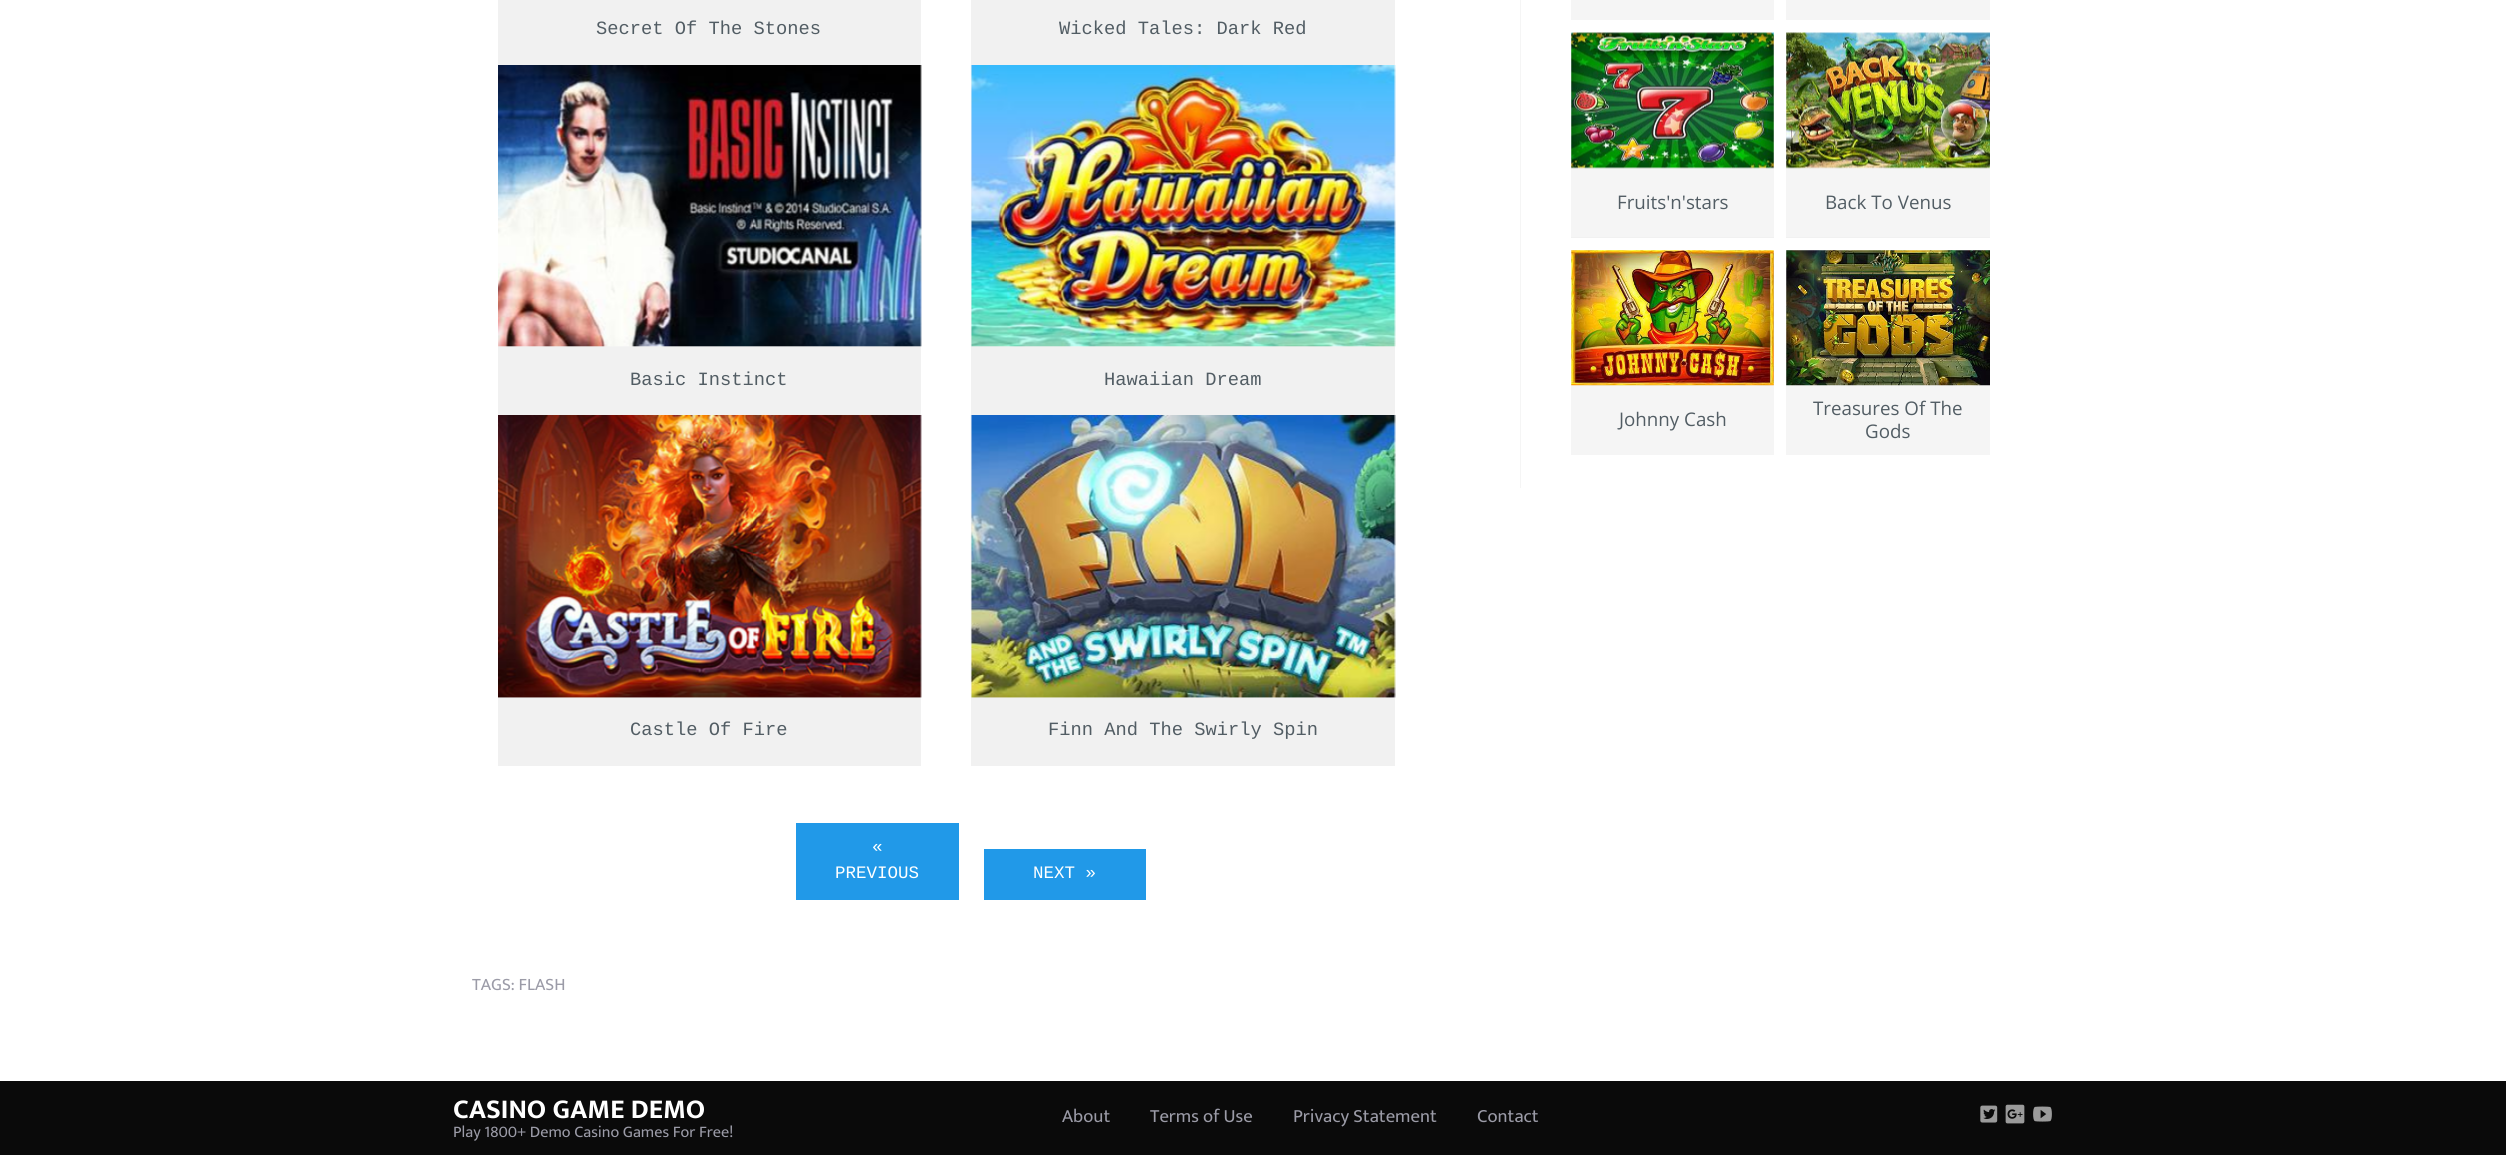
#include <cairo.h>
#include <math.h>
#include <stddef.h>

static cairo_t *ctx;

static void use_color(int r, int g, int b) {
    cairo_set_source_rgb(ctx, r / 255.0, g / 255.0, b / 255.0);
}

static void picture(const char *path, double x, double y, double w, double h) {
    cairo_surface_t *image = cairo_image_surface_create_from_png(path);
    cairo_save(ctx);
    cairo_set_source_surface(ctx, image, x, y);
    cairo_rectangle(ctx, x, y, w, h);
    cairo_fill(ctx);
    cairo_restore(ctx);
    cairo_surface_destroy(image);
}

int main(void) {
    cairo_surface_t *surface = cairo_image_surface_create(CAIRO_FORMAT_RGB24, 2506, 1155);
    ctx = cairo_create(surface);
    cairo_font_options_t *options = cairo_font_options_create();
    cairo_font_options_set_hint_metrics(options, CAIRO_HINT_METRICS_OFF);
    cairo_font_options_set_hint_style(options, CAIRO_HINT_STYLE_NONE);
    cairo_set_font_options(ctx, options);
    cairo_set_miter_limit(ctx, 4);
    use_color(255, 255, 255);
    cairo_paint(ctx);
    use_color(241, 241, 241);
    cairo_rectangle(ctx, 498, 0, 423, 65);
    cairo_fill(ctx);
    cairo_select_font_face(ctx, "Liberation Mono", CAIRO_FONT_SLANT_NORMAL, CAIRO_FONT_WEIGHT_NORMAL);
    cairo_set_font_size(ctx, 18.75);
    use_color(82, 93, 100);
    cairo_move_to(ctx, 596, 34);
    cairo_show_text(ctx, "Secret Of The Stones");
    use_color(241, 241, 241);
    cairo_rectangle(ctx, 971, 0, 424, 65);
    cairo_fill(ctx);
    use_color(82, 93, 100);
    cairo_move_to(ctx, 1059, 34);
    cairo_show_text(ctx, "Wicked Tales: Dark Red");
    use_color(241, 241, 241);
    cairo_rectangle(ctx, 498, 346, 423, 69);
    cairo_fill(ctx);
    picture("img1.png", 498, 65, 424, 282);
    use_color(82, 93, 100);
    cairo_move_to(ctx, 630, 385);
    cairo_show_text(ctx, "Basic Instinct");
    use_color(241, 241, 241);
    cairo_rectangle(ctx, 971, 65, 424, 350);
    cairo_fill(ctx);
    picture("img2.png", 970, 65, 426, 282);
    use_color(82, 93, 100);
    cairo_move_to(ctx, 1104, 385);
    cairo_show_text(ctx, "Hawaiian Dream");
    use_color(241, 241, 241);
    cairo_rectangle(ctx, 498, 415, 423, 351);
    cairo_fill(ctx);
    picture("img3.png", 498, 415, 424, 283);
    use_color(82, 93, 100);
    cairo_move_to(ctx, 630, 735);
    cairo_show_text(ctx, "Castle Of Fire");
    use_color(241, 241, 241);
    cairo_rectangle(ctx, 971, 415, 424, 351);
    cairo_fill(ctx);
    picture("img4.png", 970, 415, 426, 283);
    use_color(82, 93, 100);
    cairo_move_to(ctx, 1048, 735);
    cairo_show_text(ctx, "Finn And The Swirly Spin");
    use_color(33, 153, 232);
    cairo_rectangle(ctx, 796, 823, 163, 77);
    cairo_fill(ctx);
    cairo_set_font_size(ctx, 17.5);
    use_color(255, 255, 255);
    cairo_move_to(ctx, 872, 852);
    cairo_show_text(ctx, "«");
    cairo_move_to(ctx, 835, 878);
    cairo_show_text(ctx, "PREVIOUS");
    use_color(33, 153, 232);
    cairo_rectangle(ctx, 984, 849, 162, 51);
    cairo_fill(ctx);
    use_color(255, 255, 255);
    cairo_move_to(ctx, 1033, 878);
    cairo_show_text(ctx, "NEXT »");
    cairo_select_font_face(ctx, "Ek Mukta", CAIRO_FONT_SLANT_NORMAL, CAIRO_FONT_WEIGHT_NORMAL);
    use_color(155, 155, 167);
    cairo_move_to(ctx, 472, 990);
    cairo_show_text(ctx, "TAGS: FLASH");
    use_color(245, 245, 245);
    cairo_rectangle(ctx, 1520, 0, 1, 488);
    cairo_fill(ctx);
    cairo_rectangle(ctx, 1571, 0, 203, 20);
    cairo_fill(ctx);
    cairo_rectangle(ctx, 1786, 0, 204, 20);
    cairo_fill(ctx);
    use_color(241, 241, 241);
    cairo_rectangle(ctx, 1571, 33, 203, 205);
    cairo_fill(ctx);
    use_color(245, 245, 245);
    cairo_rectangle(ctx, 1571, 168, 203, 69);
    cairo_fill(ctx);
    picture("img5.png", 1571, 32, 203, 137);
    cairo_select_font_face(ctx, "Open Sans", CAIRO_FONT_SLANT_NORMAL, CAIRO_FONT_WEIGHT_NORMAL);
    cairo_set_font_size(ctx, 18.75);
    use_color(82, 93, 100);
    cairo_move_to(ctx, 1617, 209);
    cairo_show_text(ctx, "Fruits'n'stars");
    use_color(241, 241, 241);
    cairo_rectangle(ctx, 1786, 33, 204, 205);
    cairo_fill(ctx);
    use_color(245, 245, 245);
    cairo_rectangle(ctx, 1786, 168, 204, 69);
    cairo_fill(ctx);
    picture("img6.png", 1786, 32, 204, 137);
    use_color(82, 93, 100);
    cairo_move_to(ctx, 1825, 209);
    cairo_show_text(ctx, "Back To Venus");
    use_color(241, 241, 241);
    cairo_rectangle(ctx, 1571, 250, 203, 135);
    cairo_fill(ctx);
    use_color(245, 245, 245);
    cairo_rectangle(ctx, 1571, 385, 203, 70);
    cairo_fill(ctx);
    picture("img7.png", 1571, 250, 203, 136);
    use_color(82, 93, 100);
    cairo_move_to(ctx, 1619, 426);
    cairo_show_text(ctx, "Johnny Cash");
    use_color(241, 241, 241);
    cairo_rectangle(ctx, 1786, 250, 204, 135);
    cairo_fill(ctx);
    use_color(245, 245, 245);
    cairo_rectangle(ctx, 1786, 385, 204, 70);
    cairo_fill(ctx);
    picture("img8.png", 1786, 250, 204, 136);
    use_color(82, 93, 100);
    cairo_move_to(ctx, 1813, 415);
    cairo_show_text(ctx, "Treasures Of The");
    cairo_move_to(ctx, 1865, 438);
    cairo_show_text(ctx, "Gods");
    use_color(10, 10, 10);
    cairo_rectangle(ctx, 0, 1081, 2506, 74);
    cairo_fill(ctx);
    cairo_select_font_face(ctx, "Ek Mukta", CAIRO_FONT_SLANT_NORMAL, CAIRO_FONT_WEIGHT_BOLD);
    cairo_set_font_size(ctx, 27.5);
    use_color(255, 255, 255);
    cairo_move_to(ctx, 453, 1118);
    cairo_show_text(ctx, "CASINO GAME DEMO");
    cairo_select_font_face(ctx, "Ek Mukta", CAIRO_FONT_SLANT_NORMAL, CAIRO_FONT_WEIGHT_NORMAL);
    cairo_set_font_size(ctx, 16.25);
    use_color(155, 155, 167);
    cairo_move_to(ctx, 453, 1137);
    cairo_show_text(ctx, "Play 1800+ Demo Casino Games For Free!");
    cairo_set_font_size(ctx, 18.75);
    cairo_move_to(ctx, 1062, 1122);
    cairo_show_text(ctx, "About");
    cairo_move_to(ctx, 1150, 1122);
    cairo_show_text(ctx, "Terms of Use");
    cairo_move_to(ctx, 1293, 1122);
    cairo_show_text(ctx, "Privacy Statement");
    cairo_move_to(ctx, 1477, 1122);
    cairo_show_text(ctx, "Contact");
    picture("img9.png", 1980, 1105, 18, 18);
    picture("img10.png", 2005, 1104, 20, 20);
    picture("img11.png", 2033, 1106, 19, 16);
    cairo_surface_write_to_png(surface, "result.png");
    cairo_font_options_destroy(options);
    cairo_destroy(ctx);
    cairo_surface_destroy(surface);
    return 0;
}
